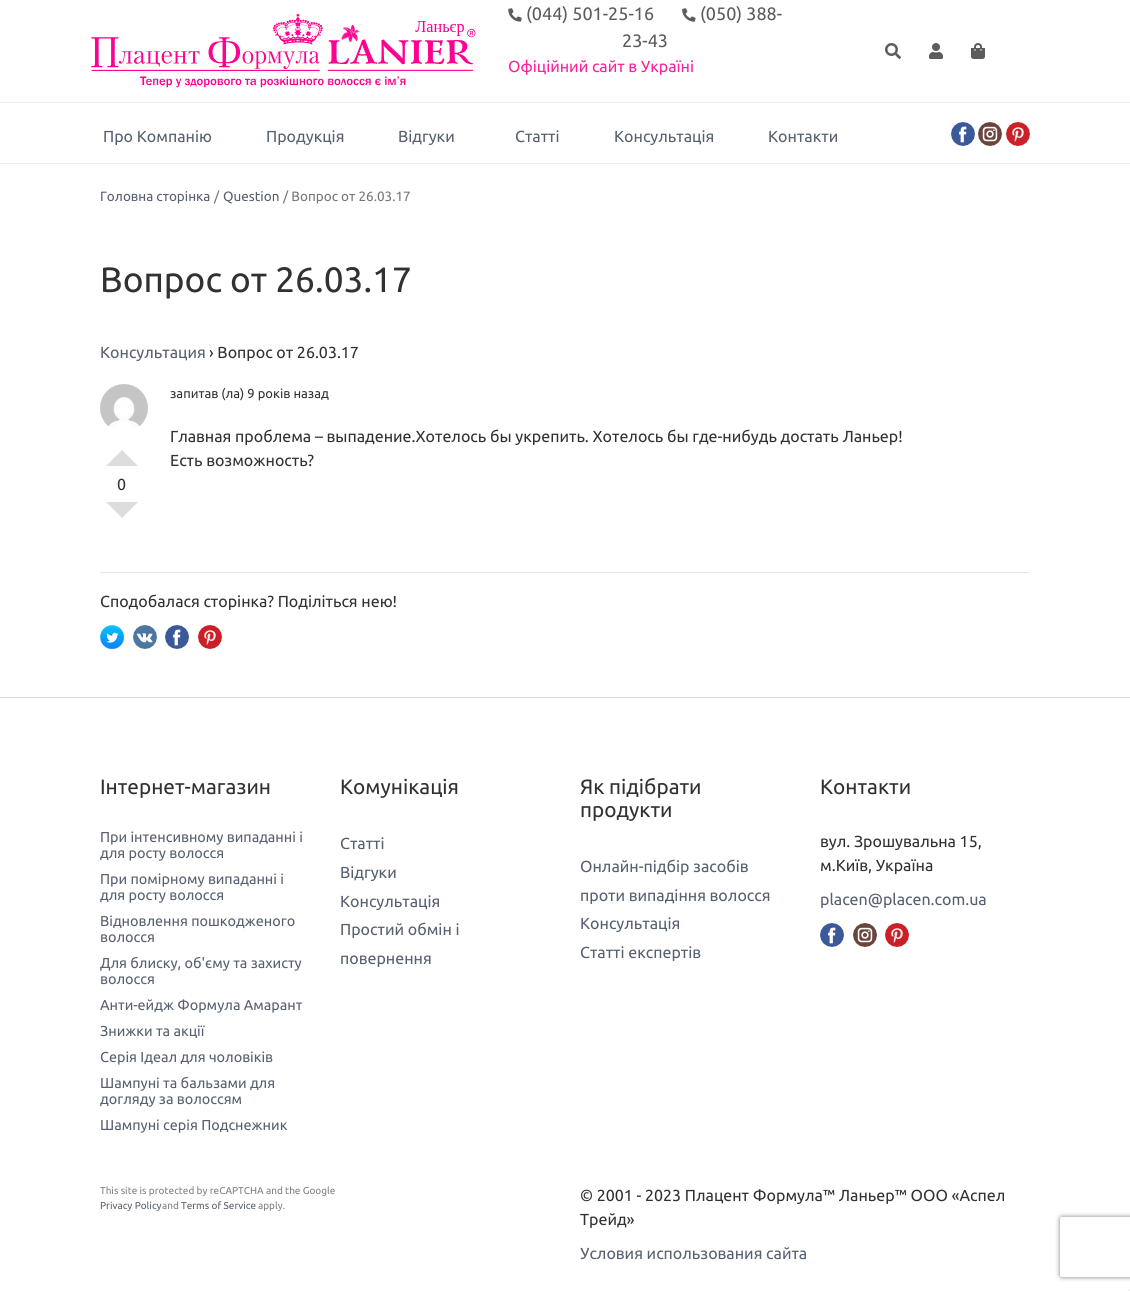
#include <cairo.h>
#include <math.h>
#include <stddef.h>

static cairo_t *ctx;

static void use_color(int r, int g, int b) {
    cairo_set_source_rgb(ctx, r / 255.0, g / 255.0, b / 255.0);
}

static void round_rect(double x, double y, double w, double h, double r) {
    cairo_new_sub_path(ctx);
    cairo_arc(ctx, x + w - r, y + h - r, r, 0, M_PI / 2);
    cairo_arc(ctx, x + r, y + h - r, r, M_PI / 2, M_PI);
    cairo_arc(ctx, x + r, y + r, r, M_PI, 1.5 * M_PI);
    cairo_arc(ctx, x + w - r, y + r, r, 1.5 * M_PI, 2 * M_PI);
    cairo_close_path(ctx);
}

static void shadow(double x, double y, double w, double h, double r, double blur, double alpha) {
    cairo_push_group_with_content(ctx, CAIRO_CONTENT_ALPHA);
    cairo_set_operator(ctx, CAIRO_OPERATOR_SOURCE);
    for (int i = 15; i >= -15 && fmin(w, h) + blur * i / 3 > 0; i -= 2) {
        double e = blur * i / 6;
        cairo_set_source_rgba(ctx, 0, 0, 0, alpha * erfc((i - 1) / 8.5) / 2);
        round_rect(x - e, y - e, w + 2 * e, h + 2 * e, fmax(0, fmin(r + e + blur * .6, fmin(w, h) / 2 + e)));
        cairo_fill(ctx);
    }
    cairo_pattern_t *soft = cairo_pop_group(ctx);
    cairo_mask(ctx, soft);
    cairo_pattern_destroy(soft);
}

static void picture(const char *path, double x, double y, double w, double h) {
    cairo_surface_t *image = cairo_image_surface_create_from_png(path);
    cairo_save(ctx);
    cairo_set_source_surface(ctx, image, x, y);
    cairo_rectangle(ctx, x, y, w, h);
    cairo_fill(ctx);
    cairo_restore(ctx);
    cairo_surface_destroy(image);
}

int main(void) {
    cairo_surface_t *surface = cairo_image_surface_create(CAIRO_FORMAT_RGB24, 1130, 1291);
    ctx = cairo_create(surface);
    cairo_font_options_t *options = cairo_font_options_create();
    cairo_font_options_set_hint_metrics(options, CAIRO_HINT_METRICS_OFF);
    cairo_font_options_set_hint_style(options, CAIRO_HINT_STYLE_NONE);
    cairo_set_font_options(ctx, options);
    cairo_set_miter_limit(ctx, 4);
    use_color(255, 255, 255);
    cairo_paint(ctx);
    use_color(238, 238, 238);
    cairo_rectangle(ctx, 0, 102, 1130, 1);
    cairo_fill(ctx);
    picture("img1.png", 91, 13, 385, 75);
    picture("img2.png", 508, 8, 14, 14);
    cairo_select_font_face(ctx, "Ubuntu", CAIRO_FONT_SLANT_NORMAL, CAIRO_FONT_WEIGHT_NORMAL);
    cairo_set_font_size(ctx, 18);
    use_color(92, 92, 92);
    cairo_move_to(ctx, 526, 20);
    cairo_show_text(ctx, "(044) 501-25-16");
    picture("img3.png", 682, 8, 14, 14);
    cairo_move_to(ctx, 700, 20);
    cairo_show_text(ctx, "(050) 388-");
    cairo_move_to(ctx, 622, 47);
    cairo_show_text(ctx, "23-43");
    cairo_set_font_size(ctx, 16);
    use_color(255, 32, 158);
    cairo_move_to(ctx, 508, 72);
    cairo_show_text(ctx, "Офіційний сайт в Україні");
    picture("img4.png", 885, 43, 16, 16);
    picture("img5.png", 929, 43, 14, 16);
    picture("img6.png", 971, 43, 14, 16);
    use_color(238, 238, 238);
    cairo_rectangle(ctx, 0, 163, 1130, 1);
    cairo_fill(ctx);
    use_color(87, 96, 112);
    cairo_move_to(ctx, 103, 142);
    cairo_show_text(ctx, "Про Компанію");
    cairo_move_to(ctx, 266, 142);
    cairo_show_text(ctx, "Продукція");
    cairo_move_to(ctx, 398, 142);
    cairo_show_text(ctx, "Відгуки");
    cairo_move_to(ctx, 515, 142);
    cairo_show_text(ctx, "Статті");
    cairo_move_to(ctx, 614, 142);
    cairo_show_text(ctx, "Консультація");
    cairo_move_to(ctx, 768, 142);
    cairo_show_text(ctx, "Контакти");
    picture("img7.png", 951, 122, 24, 24);
    picture("img8.png", 978, 122, 24, 24);
    picture("img9.png", 1006, 122, 24, 24);
    cairo_set_font_size(ctx, 13.5);
    cairo_move_to(ctx, 100, 201);
    cairo_show_text(ctx, "Головна сторінка");
    use_color(119, 119, 119);
    cairo_move_to(ctx, 214, 201);
    cairo_show_text(ctx, "/");
    use_color(87, 96, 112);
    cairo_move_to(ctx, 223, 201);
    cairo_show_text(ctx, "Question");
    use_color(119, 119, 119);
    cairo_move_to(ctx, 283, 201);
    cairo_show_text(ctx, "/ Вопрос от 26.03.17");
    cairo_set_font_size(ctx, 35.25);
    use_color(49, 49, 49);
    cairo_move_to(ctx, 100, 292);
    cairo_show_text(ctx, "Вопрос от 26.03.17");
    cairo_set_font_size(ctx, 16);
    use_color(87, 96, 112);
    cairo_move_to(ctx, 100, 358);
    cairo_show_text(ctx, "Консультация");
    use_color(49, 49, 49);
    cairo_move_to(ctx, 209, 358);
    cairo_show_text(ctx, "› Вопрос от 26.03.17");
    picture("img10.png", 100, 384, 48, 45);
    cairo_set_font_size(ctx, 13);
    cairo_move_to(ctx, 170, 398);
    cairo_show_text(ctx, "запитав (ла) 9 років назад");
    cairo_set_font_size(ctx, 16);
    cairo_move_to(ctx, 170, 442);
    cairo_show_text(ctx, "Главная проблема – выпадение.Хотелось бы укрепить. Хотелось бы где-нибудь достать Ланьер!");
    cairo_move_to(ctx, 170, 466);
    cairo_show_text(ctx, "Есть возможность?");
    use_color(221, 221, 221);
    cairo_new_path(ctx);
    cairo_move_to(ctx, 138, 466);
    cairo_line_to(ctx, 106, 466);
    cairo_line_to(ctx, 122, 450);
    cairo_close_path(ctx);
    cairo_fill(ctx);
    use_color(49, 49, 49);
    cairo_move_to(ctx, 117, 490);
    cairo_show_text(ctx, "0");
    use_color(221, 221, 221);
    cairo_new_path(ctx);
    cairo_move_to(ctx, 106, 502);
    cairo_line_to(ctx, 138, 502);
    cairo_line_to(ctx, 122, 518);
    cairo_close_path(ctx);
    cairo_fill(ctx);
    use_color(230, 230, 230);
    cairo_rectangle(ctx, 100, 572, 930, 1);
    cairo_fill(ctx);
    use_color(49, 49, 49);
    cairo_move_to(ctx, 100, 607);
    cairo_show_text(ctx, "Сподобалася сторінка? Поділіться нею!");
    picture("img11.png", 100, 625, 24, 24);
    picture("img12.png", 133, 625, 24, 24);
    picture("img7.png", 165, 625, 24, 24);
    picture("img9.png", 198, 625, 24, 24);
    use_color(219, 219, 219);
    cairo_rectangle(ctx, 0, 697, 1130, 1);
    cairo_fill(ctx);
    cairo_set_font_size(ctx, 20.75);
    use_color(49, 49, 49);
    cairo_move_to(ctx, 100, 794);
    cairo_show_text(ctx, "Інтернет-магазин");
    cairo_set_font_size(ctx, 14.4);
    use_color(87, 96, 112);
    cairo_move_to(ctx, 100, 842);
    cairo_show_text(ctx, "При інтенсивному випаданні і");
    cairo_move_to(ctx, 100, 858);
    cairo_show_text(ctx, "для росту волосся");
    cairo_move_to(ctx, 100, 884);
    cairo_show_text(ctx, "При помірному випаданні і");
    cairo_move_to(ctx, 100, 900);
    cairo_show_text(ctx, "для росту волосся");
    cairo_move_to(ctx, 100, 926);
    cairo_show_text(ctx, "Відновлення пошкодженого");
    cairo_move_to(ctx, 100, 942);
    cairo_show_text(ctx, "волосся");
    cairo_move_to(ctx, 100, 968);
    cairo_show_text(ctx, "Для блиску, об'єму та захисту");
    cairo_move_to(ctx, 100, 984);
    cairo_show_text(ctx, "волосся");
    cairo_move_to(ctx, 100, 1010);
    cairo_show_text(ctx, "Анти-ейдж Формула Амарант");
    cairo_move_to(ctx, 100, 1036);
    cairo_show_text(ctx, "Знижки та акції");
    cairo_move_to(ctx, 100, 1062);
    cairo_show_text(ctx, "Серія Ідеал для чоловіків");
    cairo_move_to(ctx, 100, 1088);
    cairo_show_text(ctx, "Шампуні та бальзами для");
    cairo_move_to(ctx, 100, 1104);
    cairo_show_text(ctx, "догляду за волоссям");
    cairo_move_to(ctx, 100, 1130);
    cairo_show_text(ctx, "Шампуні серія Подснежник");
    cairo_set_font_size(ctx, 20.75);
    use_color(49, 49, 49);
    cairo_move_to(ctx, 340, 794);
    cairo_show_text(ctx, "Комунікація");
    cairo_set_font_size(ctx, 16);
    use_color(87, 96, 112);
    cairo_move_to(ctx, 340, 849);
    cairo_show_text(ctx, "Статті");
    cairo_move_to(ctx, 340, 878);
    cairo_show_text(ctx, "Відгуки");
    cairo_move_to(ctx, 340, 907);
    cairo_show_text(ctx, "Консультація");
    cairo_move_to(ctx, 340, 935);
    cairo_show_text(ctx, "Простий обмін і");
    cairo_move_to(ctx, 340, 964);
    cairo_show_text(ctx, "повернення");
    cairo_set_font_size(ctx, 20.75);
    use_color(49, 49, 49);
    cairo_move_to(ctx, 580, 794);
    cairo_show_text(ctx, "Як підібрати");
    cairo_move_to(ctx, 580, 817);
    cairo_show_text(ctx, "продукти");
    cairo_set_font_size(ctx, 16);
    use_color(87, 96, 112);
    cairo_move_to(ctx, 580, 872);
    cairo_show_text(ctx, "Онлайн-підбір засобів");
    cairo_move_to(ctx, 580, 901);
    cairo_show_text(ctx, "проти випадіння волосся");
    cairo_move_to(ctx, 580, 929);
    cairo_show_text(ctx, "Консультація");
    cairo_move_to(ctx, 580, 958);
    cairo_show_text(ctx, "Статті експертів");
    cairo_set_font_size(ctx, 20.75);
    use_color(49, 49, 49);
    cairo_move_to(ctx, 820, 794);
    cairo_show_text(ctx, "Контакти");
    cairo_set_font_size(ctx, 16);
    cairo_move_to(ctx, 820, 847);
    cairo_show_text(ctx, "вул. Зрошувальна 15,");
    cairo_move_to(ctx, 820, 871);
    cairo_show_text(ctx, "м.Київ, Україна");
    use_color(87, 96, 112);
    cairo_move_to(ctx, 820, 905);
    cairo_show_text(ctx, "placen@placen.com.ua");
    picture("img7.png", 820, 923, 24, 24);
    picture("img8.png", 853, 923, 24, 24);
    picture("img9.png", 885, 923, 24, 24);
    cairo_set_font_size(ctx, 10);
    use_color(128, 128, 128);
    cairo_move_to(ctx, 100, 1194);
    cairo_show_text(ctx, "This site is protected by reCAPTCHA and the Google");
    use_color(87, 96, 112);
    cairo_move_to(ctx, 100, 1209);
    cairo_show_text(ctx, "Privacy Policy");
    use_color(128, 128, 128);
    cairo_move_to(ctx, 162, 1209);
    cairo_show_text(ctx, "and");
    use_color(87, 96, 112);
    cairo_move_to(ctx, 181, 1209);
    cairo_show_text(ctx, "Terms of Service");
    use_color(128, 128, 128);
    cairo_move_to(ctx, 258, 1209);
    cairo_show_text(ctx, "apply.");
    cairo_set_font_size(ctx, 16);
    use_color(49, 49, 49);
    cairo_move_to(ctx, 580, 1201);
    cairo_show_text(ctx, "© 2001 - 2023 Плацент Формула™ Ланьер™ ООО «Аспел");
    cairo_move_to(ctx, 580, 1225);
    cairo_show_text(ctx, "Трейд»");
    use_color(87, 96, 112);
    cairo_move_to(ctx, 580, 1259);
    cairo_show_text(ctx, "Условия использования сайта");
    cairo_save(ctx);
    cairo_set_fill_rule(ctx, CAIRO_FILL_RULE_EVEN_ODD);
    cairo_new_path(ctx);
    cairo_move_to(ctx, 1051, 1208);
    cairo_line_to(ctx, 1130, 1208);
    cairo_line_to(ctx, 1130, 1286);
    cairo_line_to(ctx, 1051, 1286);
    cairo_close_path(ctx);
    cairo_move_to(ctx, 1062, 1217);
    cairo_line_to(ctx, 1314, 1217);
    cairo_curve_to(ctx, 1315, 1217, 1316, 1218, 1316, 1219);
    cairo_line_to(ctx, 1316, 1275);
    cairo_curve_to(ctx, 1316, 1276, 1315, 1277, 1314, 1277);
    cairo_line_to(ctx, 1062, 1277);
    cairo_curve_to(ctx, 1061, 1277, 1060, 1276, 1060, 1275);
    cairo_line_to(ctx, 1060, 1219);
    cairo_curve_to(ctx, 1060, 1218, 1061, 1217, 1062, 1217);
    cairo_close_path(ctx);
    cairo_clip(ctx);
    use_color(128, 128, 128);
    shadow(1060, 1217, 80, 60, 2, 2.5, 1);
    cairo_restore(ctx);
    use_color(245, 245, 245);
    cairo_rectangle(ctx, 1128, 1289, 2, 2);
    cairo_fill(ctx);
    cairo_surface_write_to_png(surface, "result.png");
    cairo_font_options_destroy(options);
    cairo_destroy(ctx);
    cairo_surface_destroy(surface);
    return 0;
}
